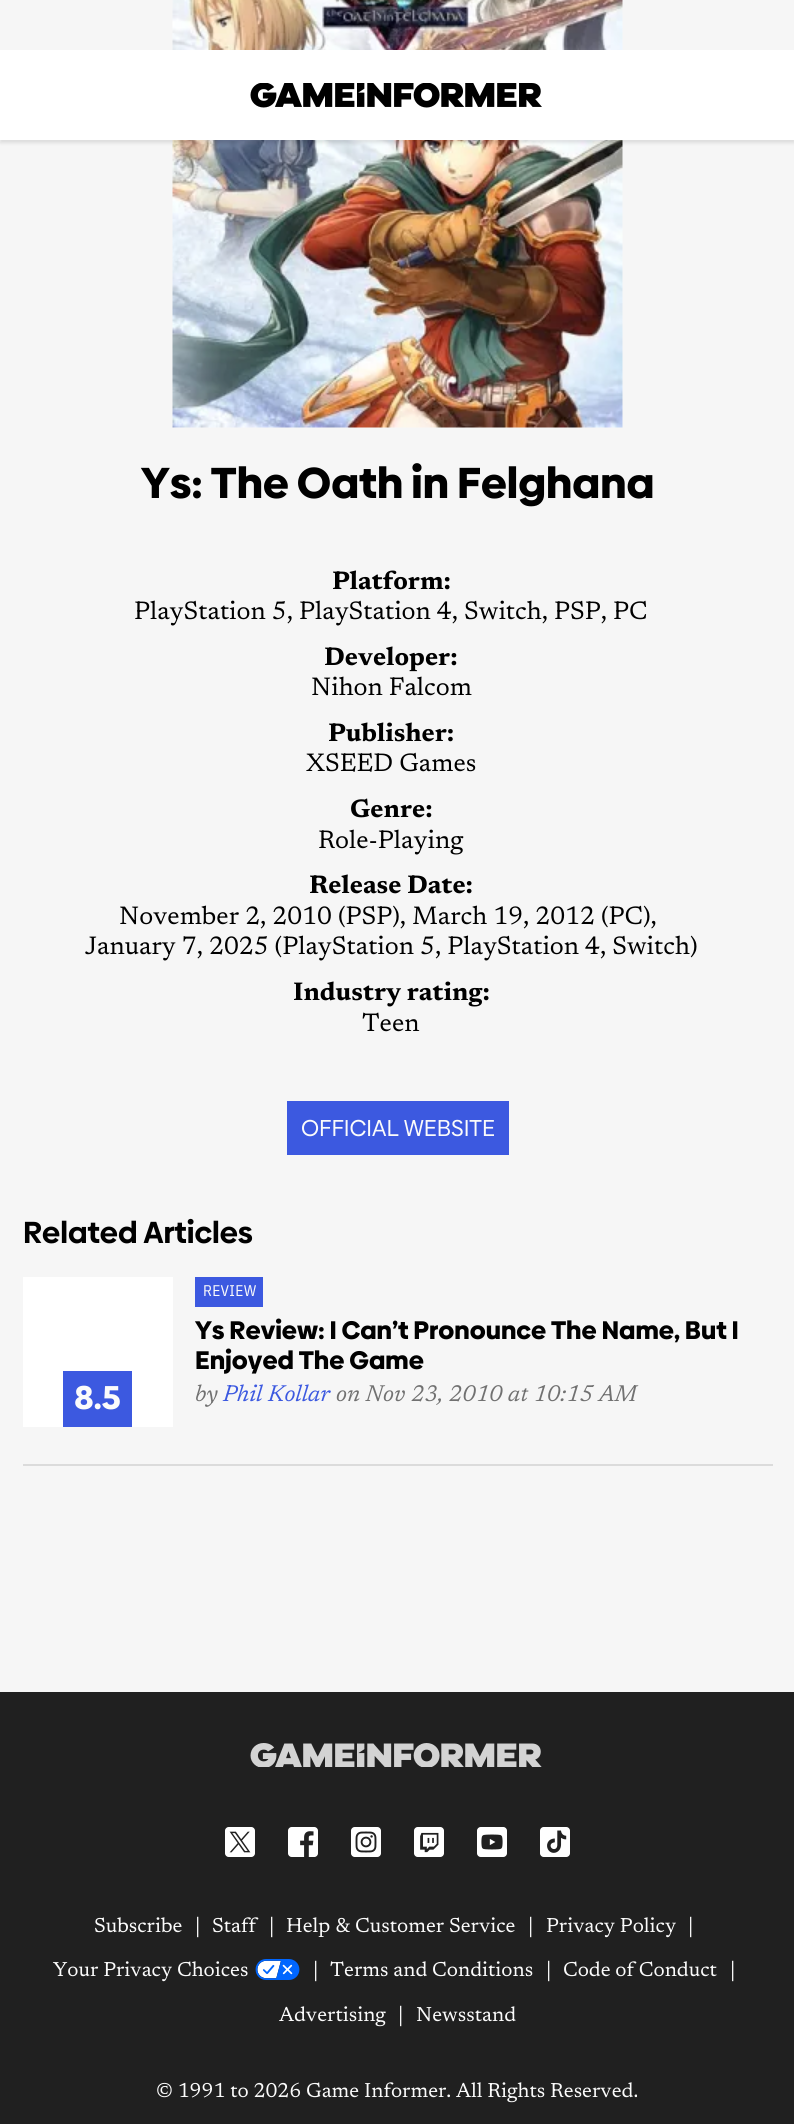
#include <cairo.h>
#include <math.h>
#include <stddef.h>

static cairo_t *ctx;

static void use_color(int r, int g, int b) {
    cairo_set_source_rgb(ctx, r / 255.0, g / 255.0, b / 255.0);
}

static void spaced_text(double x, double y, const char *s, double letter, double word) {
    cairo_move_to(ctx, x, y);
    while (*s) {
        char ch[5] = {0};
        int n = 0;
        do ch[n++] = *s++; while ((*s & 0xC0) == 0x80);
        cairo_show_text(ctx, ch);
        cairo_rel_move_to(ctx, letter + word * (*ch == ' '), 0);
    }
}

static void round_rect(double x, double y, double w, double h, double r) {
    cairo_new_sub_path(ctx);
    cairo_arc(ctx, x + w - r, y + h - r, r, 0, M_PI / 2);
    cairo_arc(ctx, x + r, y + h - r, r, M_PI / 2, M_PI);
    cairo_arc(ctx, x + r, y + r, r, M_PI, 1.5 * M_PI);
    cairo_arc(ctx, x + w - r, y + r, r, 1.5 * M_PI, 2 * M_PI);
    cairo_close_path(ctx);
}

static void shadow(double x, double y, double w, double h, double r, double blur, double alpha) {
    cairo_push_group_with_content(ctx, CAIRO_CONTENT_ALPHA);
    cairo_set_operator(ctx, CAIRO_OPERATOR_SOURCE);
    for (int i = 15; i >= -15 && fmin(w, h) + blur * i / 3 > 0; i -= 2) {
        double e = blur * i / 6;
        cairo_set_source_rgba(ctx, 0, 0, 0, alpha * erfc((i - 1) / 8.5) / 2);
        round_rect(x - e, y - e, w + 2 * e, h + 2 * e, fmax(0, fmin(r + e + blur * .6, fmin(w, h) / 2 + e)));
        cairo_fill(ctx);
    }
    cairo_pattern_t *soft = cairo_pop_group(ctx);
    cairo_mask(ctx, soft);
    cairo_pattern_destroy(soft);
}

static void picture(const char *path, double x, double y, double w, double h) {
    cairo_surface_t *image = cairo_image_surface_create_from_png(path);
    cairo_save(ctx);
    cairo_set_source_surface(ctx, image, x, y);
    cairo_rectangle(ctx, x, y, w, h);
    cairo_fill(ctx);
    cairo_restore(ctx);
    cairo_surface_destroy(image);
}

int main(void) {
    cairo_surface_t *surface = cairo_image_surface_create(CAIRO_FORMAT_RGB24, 794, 2124);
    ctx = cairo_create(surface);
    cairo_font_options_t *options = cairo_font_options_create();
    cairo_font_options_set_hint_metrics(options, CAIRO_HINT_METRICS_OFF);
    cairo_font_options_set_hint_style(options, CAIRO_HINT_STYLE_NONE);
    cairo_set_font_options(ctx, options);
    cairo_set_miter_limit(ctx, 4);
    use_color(246, 246, 246);
    cairo_paint(ctx);
    picture("img2.png", 172, 0, 451, 428);
    use_color(0, 0, 0);
    shadow(0, 53, 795, 90, 0, 1.5, 0.1);
    use_color(255, 255, 255);
    cairo_rectangle(ctx, 0, 50, 794, 90);
    cairo_fill(ctx);
    picture("img1.png", 250, 83, 292, 25);
    cairo_select_font_face(ctx, "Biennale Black", CAIRO_FONT_SLANT_NORMAL, CAIRO_FONT_WEIGHT_NORMAL);
    cairo_set_font_size(ctx, 43.4);
    use_color(0, 0, 0);
    cairo_move_to(ctx, 141, 498);
    cairo_show_text(ctx, "Ys: The Oath in Felghana");
    cairo_select_font_face(ctx, "Newsreader", CAIRO_FONT_SLANT_NORMAL, CAIRO_FONT_WEIGHT_BOLD);
    cairo_set_font_size(ctx, 25.5);
    cairo_move_to(ctx, 332, 589);
    cairo_show_text(ctx, "Platform:");
    cairo_select_font_face(ctx, "Newsreader", CAIRO_FONT_SLANT_NORMAL, CAIRO_FONT_WEIGHT_NORMAL);
    cairo_move_to(ctx, 134, 619);
    cairo_show_text(ctx, "PlayStation 5, PlayStation 4, Switch, PSP, PC");
    cairo_select_font_face(ctx, "Newsreader", CAIRO_FONT_SLANT_NORMAL, CAIRO_FONT_WEIGHT_BOLD);
    cairo_move_to(ctx, 324, 665);
    cairo_show_text(ctx, "Developer:");
    cairo_select_font_face(ctx, "Newsreader", CAIRO_FONT_SLANT_NORMAL, CAIRO_FONT_WEIGHT_NORMAL);
    cairo_move_to(ctx, 311, 695);
    cairo_show_text(ctx, "Nihon Falcom");
    cairo_select_font_face(ctx, "Newsreader", CAIRO_FONT_SLANT_NORMAL, CAIRO_FONT_WEIGHT_BOLD);
    cairo_move_to(ctx, 328, 741);
    cairo_show_text(ctx, "Publisher:");
    cairo_select_font_face(ctx, "Newsreader", CAIRO_FONT_SLANT_NORMAL, CAIRO_FONT_WEIGHT_NORMAL);
    cairo_move_to(ctx, 306, 771);
    cairo_show_text(ctx, "XSEED Games");
    cairo_select_font_face(ctx, "Newsreader", CAIRO_FONT_SLANT_NORMAL, CAIRO_FONT_WEIGHT_BOLD);
    cairo_move_to(ctx, 350, 817);
    cairo_show_text(ctx, "Genre:");
    cairo_select_font_face(ctx, "Newsreader", CAIRO_FONT_SLANT_NORMAL, CAIRO_FONT_WEIGHT_NORMAL);
    cairo_move_to(ctx, 318, 848);
    cairo_show_text(ctx, "Role-Playing");
    cairo_select_font_face(ctx, "Newsreader", CAIRO_FONT_SLANT_NORMAL, CAIRO_FONT_WEIGHT_BOLD);
    cairo_move_to(ctx, 309, 893);
    cairo_show_text(ctx, "Release Date:");
    cairo_select_font_face(ctx, "Newsreader", CAIRO_FONT_SLANT_NORMAL, CAIRO_FONT_WEIGHT_NORMAL);
    cairo_move_to(ctx, 119, 924);
    cairo_show_text(ctx, "November 2, 2010 (PSP), March 19, 2012 (PC),");
    cairo_move_to(ctx, 85, 954);
    cairo_show_text(ctx, "January 7, 2025 (PlayStation 5, PlayStation 4, Switch)");
    cairo_select_font_face(ctx, "Newsreader", CAIRO_FONT_SLANT_NORMAL, CAIRO_FONT_WEIGHT_BOLD);
    cairo_move_to(ctx, 293, 1000);
    cairo_show_text(ctx, "Industry rating:");
    cairo_select_font_face(ctx, "Newsreader", CAIRO_FONT_SLANT_NORMAL, CAIRO_FONT_WEIGHT_NORMAL);
    cairo_move_to(ctx, 362, 1031);
    cairo_show_text(ctx, "Teen");
    use_color(60, 89, 224);
    cairo_rectangle(ctx, 287, 1101, 222, 54);
    cairo_fill(ctx);
    cairo_select_font_face(ctx, "Biennale", CAIRO_FONT_SLANT_NORMAL, CAIRO_FONT_WEIGHT_NORMAL);
    cairo_set_font_size(ctx, 23);
    use_color(251, 251, 251);
    cairo_move_to(ctx, 301, 1136);
    cairo_show_text(ctx, "OFFICIAL WEBSITE");
    cairo_select_font_face(ctx, "Biennale", CAIRO_FONT_SLANT_NORMAL, CAIRO_FONT_WEIGHT_BOLD);
    cairo_set_font_size(ctx, 30.5);
    use_color(0, 0, 0);
    cairo_move_to(ctx, 23, 1243);
    cairo_show_text(ctx, "Related Articles");
    use_color(219, 219, 219);
    cairo_rectangle(ctx, 23, 1464, 750, 2);
    cairo_fill(ctx);
    use_color(255, 255, 255);
    cairo_rectangle(ctx, 23, 1277, 150, 150);
    cairo_fill(ctx);
    use_color(60, 89, 224);
    cairo_rectangle(ctx, 63, 1371, 69, 56);
    cairo_fill(ctx);
    cairo_select_font_face(ctx, "Biennale Black", CAIRO_FONT_SLANT_NORMAL, CAIRO_FONT_WEIGHT_NORMAL);
    cairo_set_font_size(ctx, 33);
    use_color(251, 251, 251);
    cairo_move_to(ctx, 74, 1409);
    cairo_show_text(ctx, "8.5");
    use_color(60, 89, 224);
    cairo_rectangle(ctx, 195, 1277, 68, 30);
    cairo_fill(ctx);
    cairo_select_font_face(ctx, "IBM Plex Sans Condensed", CAIRO_FONT_SLANT_NORMAL, CAIRO_FONT_WEIGHT_NORMAL);
    cairo_set_font_size(ctx, 15.5);
    use_color(251, 251, 251);
    spaced_text(203, 1296, "REVIEW", 0.25, 0);
    cairo_select_font_face(ctx, "Biennale Black", CAIRO_FONT_SLANT_NORMAL, CAIRO_FONT_WEIGHT_NORMAL);
    cairo_set_font_size(ctx, 25.5);
    use_color(0, 0, 0);
    cairo_move_to(ctx, 195, 1339);
    cairo_show_text(ctx, "Ys Review: I Can’t Pronounce The Name, But I");
    cairo_move_to(ctx, 195, 1369);
    cairo_show_text(ctx, "Enjoyed The Game");
    cairo_select_font_face(ctx, "Newsreader", CAIRO_FONT_SLANT_ITALIC, CAIRO_FONT_WEIGHT_NORMAL);
    cairo_set_font_size(ctx, 23);
    use_color(113, 113, 113);
    cairo_move_to(ctx, 195, 1401);
    cairo_show_text(ctx, "by");
    use_color(60, 89, 224);
    cairo_move_to(ctx, 223, 1401);
    cairo_show_text(ctx, "Phil Kollar");
    use_color(113, 113, 113);
    cairo_move_to(ctx, 336, 1401);
    cairo_show_text(ctx, "on Nov 23, 2010 at 10:15 AM");
    use_color(32, 32, 32);
    cairo_rectangle(ctx, 0, 1692, 794, 432);
    cairo_fill(ctx);
    picture("img3.png", 250, 1743, 292, 24);
    picture("img4.png", 225, 1827, 30, 30);
    picture("img5.png", 288, 1827, 30, 30);
    picture("img6.png", 351, 1827, 30, 30);
    picture("img7.png", 414, 1827, 30, 30);
    picture("img8.png", 477, 1827, 30, 30);
    picture("img9.png", 540, 1827, 30, 30);
    cairo_select_font_face(ctx, "Newsreader", CAIRO_FONT_SLANT_NORMAL, CAIRO_FONT_WEIGHT_NORMAL);
    cairo_set_font_size(ctx, 20.4);
    use_color(251, 251, 251);
    cairo_move_to(ctx, 94, 1932);
    cairo_show_text(ctx, "Subscribe");
    cairo_move_to(ctx, 195, 1932);
    cairo_show_text(ctx, "|");
    cairo_move_to(ctx, 212, 1932);
    cairo_show_text(ctx, "Staff");
    cairo_move_to(ctx, 269, 1932);
    cairo_show_text(ctx, "|");
    cairo_move_to(ctx, 286, 1932);
    cairo_show_text(ctx, "Help & Customer Service");
    cairo_move_to(ctx, 528, 1932);
    cairo_show_text(ctx, "|");
    cairo_move_to(ctx, 546, 1932);
    cairo_show_text(ctx, "Privacy Policy");
    cairo_move_to(ctx, 688, 1932);
    cairo_show_text(ctx, "|");
    cairo_move_to(ctx, 53, 1976);
    cairo_show_text(ctx, "Your Privacy Choices");
    picture("img10.png", 255, 1959, 45, 21);
    cairo_move_to(ctx, 313, 1976);
    cairo_show_text(ctx, "|");
    cairo_move_to(ctx, 330, 1976);
    cairo_show_text(ctx, "Terms and Conditions");
    cairo_move_to(ctx, 546, 1976);
    cairo_show_text(ctx, "|");
    cairo_move_to(ctx, 563, 1976);
    cairo_show_text(ctx, "Code of Conduct");
    cairo_move_to(ctx, 730, 1976);
    cairo_show_text(ctx, "|");
    cairo_move_to(ctx, 279, 2021);
    cairo_show_text(ctx, "Advertising");
    cairo_move_to(ctx, 398, 2021);
    cairo_show_text(ctx, "|");
    cairo_move_to(ctx, 416, 2021);
    cairo_show_text(ctx, "Newsstand");
    cairo_move_to(ctx, 156, 2097);
    cairo_show_text(ctx, "© 1991 to 2026 Game Informer. All Rights Reserved.");
    cairo_surface_write_to_png(surface, "result.png");
    cairo_font_options_destroy(options);
    cairo_destroy(ctx);
    cairo_surface_destroy(surface);
    return 0;
}
